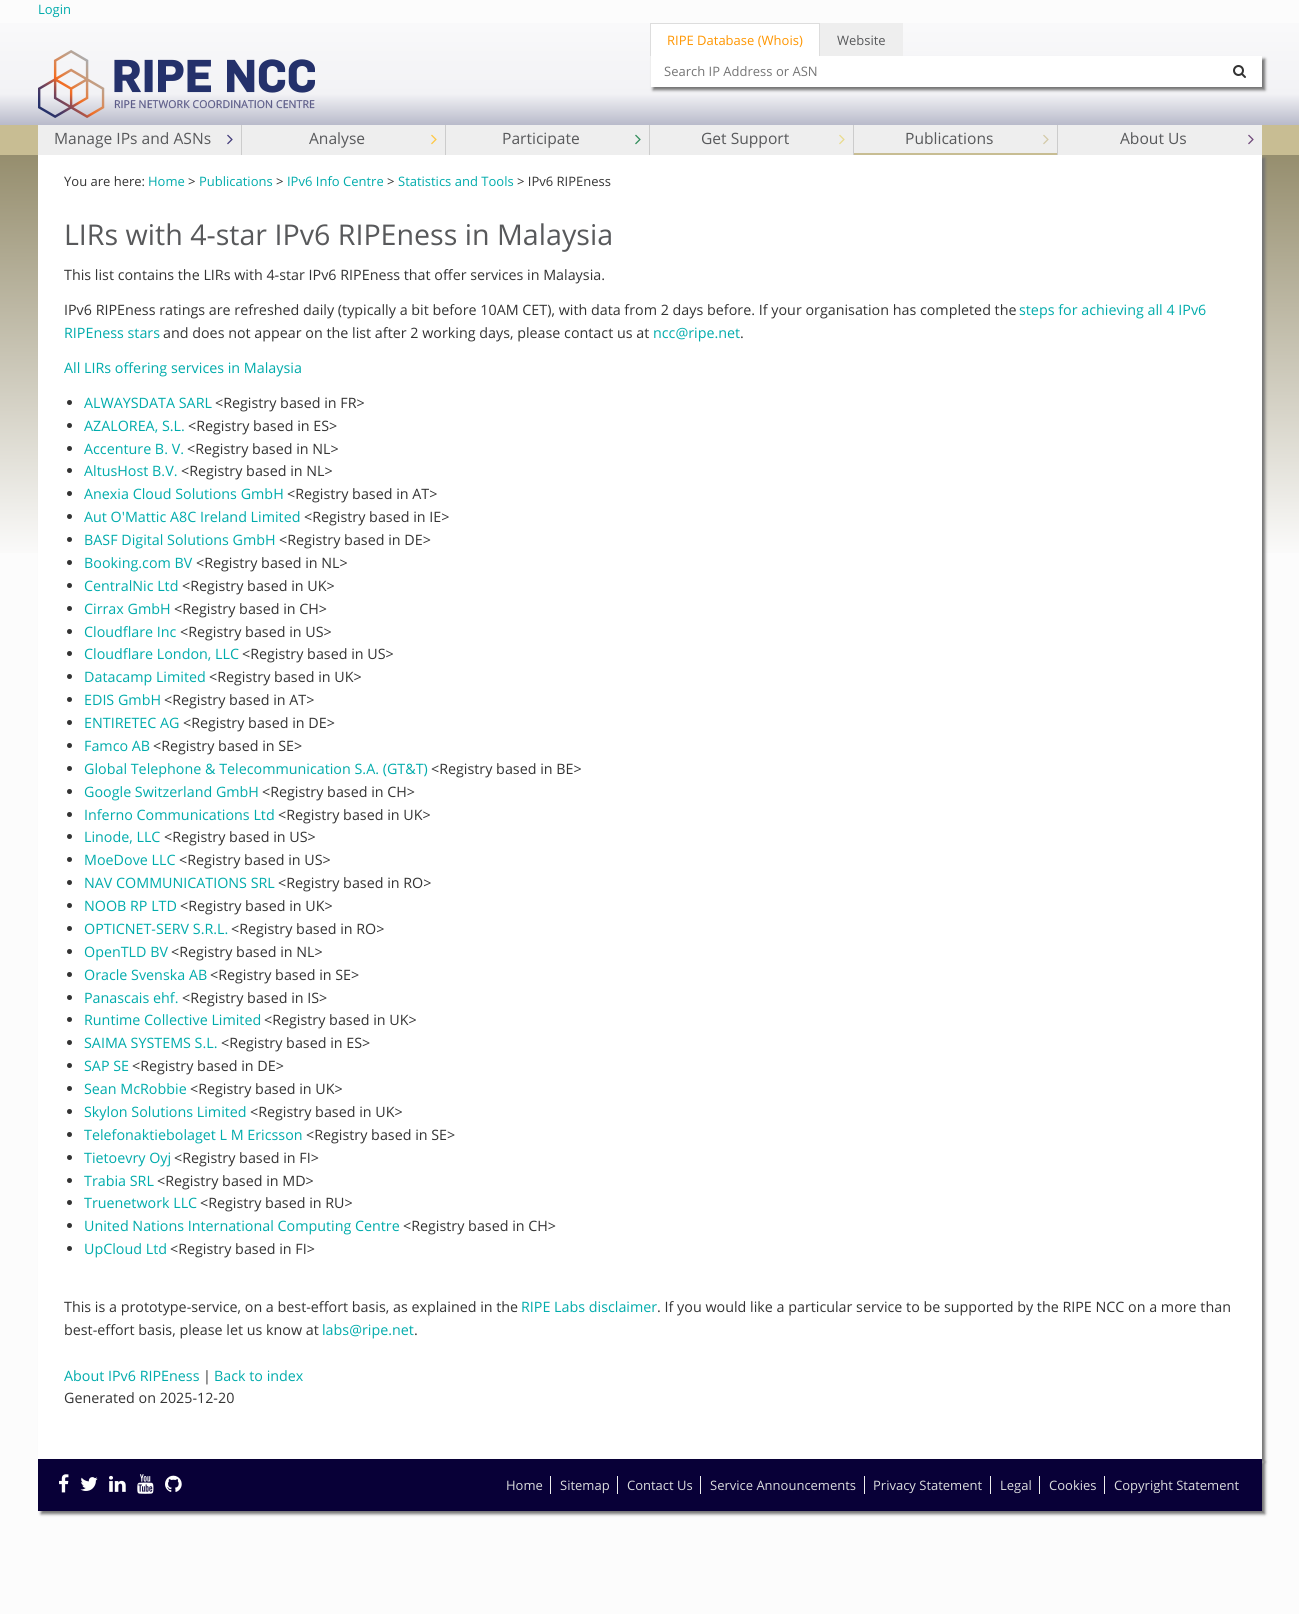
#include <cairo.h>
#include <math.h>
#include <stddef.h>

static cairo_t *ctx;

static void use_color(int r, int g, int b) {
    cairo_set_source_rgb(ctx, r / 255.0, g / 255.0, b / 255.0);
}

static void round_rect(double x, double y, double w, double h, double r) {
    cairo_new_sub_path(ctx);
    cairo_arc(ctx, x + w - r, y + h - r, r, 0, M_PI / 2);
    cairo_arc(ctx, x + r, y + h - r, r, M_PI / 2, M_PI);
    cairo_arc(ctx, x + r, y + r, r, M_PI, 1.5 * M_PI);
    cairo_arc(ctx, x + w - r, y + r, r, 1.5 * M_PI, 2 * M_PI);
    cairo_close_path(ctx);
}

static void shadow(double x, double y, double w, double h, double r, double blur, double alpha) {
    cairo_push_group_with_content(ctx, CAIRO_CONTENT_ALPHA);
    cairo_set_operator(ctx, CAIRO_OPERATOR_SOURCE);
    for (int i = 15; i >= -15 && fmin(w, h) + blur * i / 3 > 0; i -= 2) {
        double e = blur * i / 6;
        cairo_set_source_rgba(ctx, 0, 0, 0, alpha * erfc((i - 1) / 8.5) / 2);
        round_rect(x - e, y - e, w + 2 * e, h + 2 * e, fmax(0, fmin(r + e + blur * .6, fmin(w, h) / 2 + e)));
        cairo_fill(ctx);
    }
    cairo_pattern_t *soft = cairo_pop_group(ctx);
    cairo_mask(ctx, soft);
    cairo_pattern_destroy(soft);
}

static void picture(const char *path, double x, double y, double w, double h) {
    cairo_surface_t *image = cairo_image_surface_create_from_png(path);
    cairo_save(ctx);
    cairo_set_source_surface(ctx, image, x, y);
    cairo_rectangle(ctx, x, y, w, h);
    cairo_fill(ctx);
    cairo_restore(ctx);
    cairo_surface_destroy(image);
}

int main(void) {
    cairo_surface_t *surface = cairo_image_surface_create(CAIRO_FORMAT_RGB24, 1299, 1614);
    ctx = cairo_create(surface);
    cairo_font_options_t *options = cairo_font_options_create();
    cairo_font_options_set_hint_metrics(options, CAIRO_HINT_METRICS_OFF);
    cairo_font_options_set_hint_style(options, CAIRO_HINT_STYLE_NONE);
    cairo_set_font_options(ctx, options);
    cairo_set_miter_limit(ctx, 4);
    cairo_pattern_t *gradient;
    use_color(252, 252, 252);
    cairo_paint(ctx);
    gradient = cairo_pattern_create_linear(650, 0, 650, 125);
    cairo_pattern_add_color_stop_rgba(gradient, 0, 0.988, 0.988, 0.988, 1);
    cairo_pattern_add_color_stop_rgba(gradient, 0.75, 0.949, 0.949, 0.961, 1);
    cairo_pattern_add_color_stop_rgba(gradient, 1, 0.722, 0.729, 0.792, 1);
    cairo_set_source(ctx, gradient);
    cairo_pattern_destroy(gradient);
    cairo_rectangle(ctx, 0, 23, 1299, 102);
    cairo_fill(ctx);
    cairo_select_font_face(ctx, "Open Sans", CAIRO_FONT_SLANT_NORMAL, CAIRO_FONT_WEIGHT_NORMAL);
    cairo_set_font_size(ctx, 13);
    use_color(0, 171, 171);
    cairo_move_to(ctx, 38, 14);
    cairo_show_text(ctx, "Login");
    picture("img1.png", 38, 50, 277, 68);
    use_color(114, 114, 114);
    shadow(653, 59, 612, 31, 0, 1.5, 1);
    use_color(238, 238, 238);
    cairo_rectangle(ctx, 650, 56, 1, 18);
    cairo_fill(ctx);
    use_color(255, 255, 255);
    cairo_rectangle(ctx, 650, 24, 169, 33);
    cairo_fill(ctx);
    use_color(221, 221, 221);
    cairo_rectangle(ctx, 650, 23, 170, 1);
    cairo_fill(ctx);
    cairo_new_path(ctx);
    cairo_move_to(ctx, 820, 23);
    cairo_line_to(ctx, 820, 57);
    cairo_line_to(ctx, 819, 56);
    cairo_line_to(ctx, 819, 24);
    cairo_close_path(ctx);
    cairo_fill(ctx);
    cairo_new_path(ctx);
    cairo_move_to(ctx, 650, 57);
    cairo_line_to(ctx, 650, 23);
    cairo_line_to(ctx, 651, 24);
    cairo_line_to(ctx, 651, 56);
    cairo_close_path(ctx);
    cairo_fill(ctx);
    use_color(255, 150, 0);
    cairo_move_to(ctx, 667, 45);
    cairo_show_text(ctx, "RIPE Database (Whois)");
    use_color(238, 238, 238);
    cairo_rectangle(ctx, 820, 23, 83, 33);
    cairo_fill(ctx);
    use_color(88, 89, 91);
    cairo_move_to(ctx, 837, 45);
    cairo_show_text(ctx, "Website");
    use_color(255, 255, 255);
    cairo_rectangle(ctx, 651, 56, 611, 31);
    cairo_fill(ctx);
    use_color(117, 117, 117);
    cairo_move_to(ctx, 664, 76);
    cairo_show_text(ctx, "Search IP Address or ASN");
    picture("img2.png", 1233, 65, 13, 13);
    use_color(200, 189, 147);
    cairo_rectangle(ctx, 0, 125, 1299, 30);
    cairo_fill(ctx);
    gradient = cairo_pattern_create_linear(649, 155, 650, 1459);
    cairo_pattern_add_color_stop_rgba(gradient, 0, 0.588, 0.557, 0.431, 1);
    cairo_pattern_add_color_stop_rgba(gradient, 0.31, 0.988, 0.988, 0.988, 1);
    cairo_pattern_add_color_stop_rgba(gradient, 1, 0.988, 0.988, 0.988, 1);
    cairo_set_source(ctx, gradient);
    cairo_pattern_destroy(gradient);
    cairo_rectangle(ctx, 0, 155, 1299, 398);
    cairo_fill(ctx);
    use_color(114, 114, 114);
    shadow(41, 158, 1224, 1304, 0, 1.5, 1);
    use_color(204, 204, 204);
    cairo_rectangle(ctx, 241, 125, 1, 30);
    cairo_fill(ctx);
    use_color(238, 238, 238);
    cairo_rectangle(ctx, 38, 125, 203, 30);
    cairo_fill(ctx);
    cairo_set_font_size(ctx, 15.6);
    use_color(88, 89, 91);
    cairo_move_to(ctx, 54, 144);
    cairo_show_text(ctx, "Manage IPs and ASNs");
    picture("img3.png", 227, 134, 6, 11);
    use_color(204, 204, 204);
    cairo_rectangle(ctx, 445, 125, 1, 30);
    cairo_fill(ctx);
    use_color(238, 238, 238);
    cairo_rectangle(ctx, 242, 125, 203, 30);
    cairo_fill(ctx);
    use_color(88, 89, 91);
    cairo_move_to(ctx, 309, 144);
    cairo_show_text(ctx, "Analyse");
    picture("img4.png", 431, 134, 6, 11);
    use_color(204, 204, 204);
    cairo_rectangle(ctx, 649, 125, 1, 30);
    cairo_fill(ctx);
    use_color(238, 238, 238);
    cairo_rectangle(ctx, 446, 125, 203, 30);
    cairo_fill(ctx);
    use_color(88, 89, 91);
    cairo_move_to(ctx, 502, 144);
    cairo_show_text(ctx, "Participate");
    picture("img5.png", 635, 134, 6, 11);
    use_color(204, 204, 204);
    cairo_rectangle(ctx, 853, 125, 1, 30);
    cairo_fill(ctx);
    use_color(238, 238, 238);
    cairo_rectangle(ctx, 650, 125, 203, 30);
    cairo_fill(ctx);
    use_color(88, 89, 91);
    cairo_move_to(ctx, 701, 144);
    cairo_show_text(ctx, "Get Support");
    picture("img6.png", 839, 134, 6, 11);
    use_color(204, 204, 204);
    cairo_rectangle(ctx, 1057, 125, 1, 30);
    cairo_fill(ctx);
    use_color(238, 238, 238);
    cairo_rectangle(ctx, 854, 125, 203, 28);
    cairo_fill(ctx);
    use_color(88, 89, 91);
    cairo_move_to(ctx, 905, 144);
    cairo_show_text(ctx, "Publications");
    picture("img7.png", 1043, 134, 6, 11);
    use_color(238, 238, 238);
    cairo_rectangle(ctx, 1058, 125, 204, 30);
    cairo_fill(ctx);
    use_color(88, 89, 91);
    cairo_move_to(ctx, 1120, 144);
    cairo_show_text(ctx, "About Us");
    picture("img8.png", 1248, 134, 6, 11);
    use_color(255, 255, 255);
    cairo_rectangle(ctx, 38, 155, 1224, 1304);
    cairo_fill(ctx);
    cairo_set_font_size(ctx, 13);
    use_color(51, 51, 51);
    cairo_move_to(ctx, 64, 186);
    cairo_show_text(ctx, "You are here:");
    use_color(0, 171, 171);
    cairo_move_to(ctx, 148, 186);
    cairo_show_text(ctx, "Home");
    use_color(51, 51, 51);
    cairo_move_to(ctx, 188, 186);
    cairo_show_text(ctx, ">");
    use_color(0, 171, 171);
    cairo_move_to(ctx, 199, 186);
    cairo_show_text(ctx, "Publications");
    use_color(51, 51, 51);
    cairo_move_to(ctx, 276, 186);
    cairo_show_text(ctx, ">");
    use_color(0, 171, 171);
    cairo_move_to(ctx, 287, 186);
    cairo_show_text(ctx, "IPv6 Info Centre");
    use_color(51, 51, 51);
    cairo_move_to(ctx, 387, 186);
    cairo_show_text(ctx, ">");
    use_color(0, 171, 171);
    cairo_move_to(ctx, 398, 186);
    cairo_show_text(ctx, "Statistics and Tools");
    use_color(51, 51, 51);
    cairo_move_to(ctx, 517, 186);
    cairo_show_text(ctx, "> IPv6 RIPEness");
    cairo_set_font_size(ctx, 28.6);
    use_color(88, 89, 91);
    cairo_move_to(ctx, 64, 245);
    cairo_show_text(ctx, "LIRs with 4-star IPv6 RIPEness in Malaysia");
    cairo_set_font_size(ctx, 14.3);
    use_color(51, 51, 51);
    cairo_move_to(ctx, 64, 280);
    cairo_show_text(ctx, "This list contains the LIRs with 4-star IPv6 RIPEness that offer services in Malaysia.");
    cairo_move_to(ctx, 64, 315);
    cairo_show_text(ctx, "IPv6 RIPEness ratings are refreshed daily (typically a bit before 10AM CET), with data from 2 days before. If your organisation has completed the");
    use_color(0, 171, 171);
    cairo_move_to(ctx, 1019, 315);
    cairo_show_text(ctx, "steps for achieving all 4 IPv6");
    cairo_move_to(ctx, 64, 338);
    cairo_show_text(ctx, "RIPEness stars");
    use_color(51, 51, 51);
    cairo_move_to(ctx, 163, 338);
    cairo_show_text(ctx, "and does not appear on the list after 2 working days, please contact us at");
    use_color(0, 171, 171);
    cairo_move_to(ctx, 653, 338);
    cairo_show_text(ctx, "ncc@ripe.net");
    use_color(51, 51, 51);
    cairo_move_to(ctx, 740, 338);
    cairo_show_text(ctx, ".");
    use_color(0, 171, 171);
    cairo_move_to(ctx, 64, 373);
    cairo_show_text(ctx, "All LIRs offering services in Malaysia");
    use_color(51, 51, 51);
    cairo_new_path(ctx);
    cairo_arc(ctx, 69.5, 402.5, 2.5, 0, 2 * M_PI);
    cairo_fill(ctx);
    use_color(0, 171, 171);
    cairo_move_to(ctx, 84, 408);
    cairo_show_text(ctx, "ALWAYSDATA SARL");
    use_color(51, 51, 51);
    cairo_move_to(ctx, 215, 408);
    cairo_show_text(ctx, "<Registry based in FR>");
    cairo_new_path(ctx);
    cairo_arc(ctx, 69.5, 425.5, 2.5, 0, 2 * M_PI);
    cairo_fill(ctx);
    use_color(0, 171, 171);
    cairo_move_to(ctx, 84, 431);
    cairo_show_text(ctx, "AZALOREA, S.L.");
    use_color(51, 51, 51);
    cairo_move_to(ctx, 188, 431);
    cairo_show_text(ctx, "<Registry based in ES>");
    cairo_new_path(ctx);
    cairo_arc(ctx, 69.5, 448.5, 2.5, 0, 2 * M_PI);
    cairo_fill(ctx);
    use_color(0, 171, 171);
    cairo_move_to(ctx, 84, 454);
    cairo_show_text(ctx, "Accenture B. V.");
    use_color(51, 51, 51);
    cairo_move_to(ctx, 187, 454);
    cairo_show_text(ctx, "<Registry based in NL>");
    cairo_new_path(ctx);
    cairo_arc(ctx, 69.5, 470.5, 2.5, 0, 2 * M_PI);
    cairo_fill(ctx);
    use_color(0, 171, 171);
    cairo_move_to(ctx, 84, 476);
    cairo_show_text(ctx, "AltusHost B.V.");
    use_color(51, 51, 51);
    cairo_move_to(ctx, 181, 476);
    cairo_show_text(ctx, "<Registry based in NL>");
    cairo_new_path(ctx);
    cairo_arc(ctx, 69.5, 493.5, 2.5, 0, 2 * M_PI);
    cairo_fill(ctx);
    use_color(0, 171, 171);
    cairo_move_to(ctx, 84, 499);
    cairo_show_text(ctx, "Anexia Cloud Solutions GmbH");
    use_color(51, 51, 51);
    cairo_move_to(ctx, 287, 499);
    cairo_show_text(ctx, "<Registry based in AT>");
    cairo_new_path(ctx);
    cairo_arc(ctx, 69.5, 516.5, 2.5, 0, 2 * M_PI);
    cairo_fill(ctx);
    use_color(0, 171, 171);
    cairo_move_to(ctx, 84, 522);
    cairo_show_text(ctx, "Aut O'Mattic A8C Ireland Limited");
    use_color(51, 51, 51);
    cairo_move_to(ctx, 304, 522);
    cairo_show_text(ctx, "<Registry based in IE>");
    cairo_new_path(ctx);
    cairo_arc(ctx, 69.5, 539.5, 2.5, 0, 2 * M_PI);
    cairo_fill(ctx);
    use_color(0, 171, 171);
    cairo_move_to(ctx, 84, 545);
    cairo_show_text(ctx, "BASF Digital Solutions GmbH");
    use_color(51, 51, 51);
    cairo_move_to(ctx, 279, 545);
    cairo_show_text(ctx, "<Registry based in DE>");
    cairo_new_path(ctx);
    cairo_arc(ctx, 69.5, 562.5, 2.5, 0, 2 * M_PI);
    cairo_fill(ctx);
    use_color(0, 171, 171);
    cairo_move_to(ctx, 84, 568);
    cairo_show_text(ctx, "Booking.com BV");
    use_color(51, 51, 51);
    cairo_move_to(ctx, 196, 568);
    cairo_show_text(ctx, "<Registry based in NL>");
    cairo_new_path(ctx);
    cairo_arc(ctx, 69.5, 585.5, 2.5, 0, 2 * M_PI);
    cairo_fill(ctx);
    use_color(0, 171, 171);
    cairo_move_to(ctx, 84, 591);
    cairo_show_text(ctx, "CentralNic Ltd");
    use_color(51, 51, 51);
    cairo_move_to(ctx, 182, 591);
    cairo_show_text(ctx, "<Registry based in UK>");
    cairo_new_path(ctx);
    cairo_arc(ctx, 69.5, 608.5, 2.5, 0, 2 * M_PI);
    cairo_fill(ctx);
    use_color(0, 171, 171);
    cairo_move_to(ctx, 84, 614);
    cairo_show_text(ctx, "Cirrax GmbH");
    use_color(51, 51, 51);
    cairo_move_to(ctx, 174, 614);
    cairo_show_text(ctx, "<Registry based in CH>");
    cairo_new_path(ctx);
    cairo_arc(ctx, 69.5, 631.5, 2.5, 0, 2 * M_PI);
    cairo_fill(ctx);
    use_color(0, 171, 171);
    cairo_move_to(ctx, 84, 637);
    cairo_show_text(ctx, "Cloudflare Inc");
    use_color(51, 51, 51);
    cairo_move_to(ctx, 180, 637);
    cairo_show_text(ctx, "<Registry based in US>");
    cairo_new_path(ctx);
    cairo_arc(ctx, 69.5, 653.5, 2.5, 0, 2 * M_PI);
    cairo_fill(ctx);
    use_color(0, 171, 171);
    cairo_move_to(ctx, 84, 659);
    cairo_show_text(ctx, "Cloudflare London, LLC");
    use_color(51, 51, 51);
    cairo_move_to(ctx, 242, 659);
    cairo_show_text(ctx, "<Registry based in US>");
    cairo_new_path(ctx);
    cairo_arc(ctx, 69.5, 676.5, 2.5, 0, 2 * M_PI);
    cairo_fill(ctx);
    use_color(0, 171, 171);
    cairo_move_to(ctx, 84, 682);
    cairo_show_text(ctx, "Datacamp Limited");
    use_color(51, 51, 51);
    cairo_move_to(ctx, 209, 682);
    cairo_show_text(ctx, "<Registry based in UK>");
    cairo_new_path(ctx);
    cairo_arc(ctx, 69.5, 699.5, 2.5, 0, 2 * M_PI);
    cairo_fill(ctx);
    use_color(0, 171, 171);
    cairo_move_to(ctx, 84, 705);
    cairo_show_text(ctx, "EDIS GmbH");
    use_color(51, 51, 51);
    cairo_move_to(ctx, 164, 705);
    cairo_show_text(ctx, "<Registry based in AT>");
    cairo_new_path(ctx);
    cairo_arc(ctx, 69.5, 722.5, 2.5, 0, 2 * M_PI);
    cairo_fill(ctx);
    use_color(0, 171, 171);
    cairo_move_to(ctx, 84, 728);
    cairo_show_text(ctx, "ENTIRETEC AG");
    use_color(51, 51, 51);
    cairo_move_to(ctx, 183, 728);
    cairo_show_text(ctx, "<Registry based in DE>");
    cairo_new_path(ctx);
    cairo_arc(ctx, 69.5, 745.5, 2.5, 0, 2 * M_PI);
    cairo_fill(ctx);
    use_color(0, 171, 171);
    cairo_move_to(ctx, 84, 751);
    cairo_show_text(ctx, "Famco AB");
    use_color(51, 51, 51);
    cairo_move_to(ctx, 153, 751);
    cairo_show_text(ctx, "<Registry based in SE>");
    cairo_new_path(ctx);
    cairo_arc(ctx, 69.5, 768.5, 2.5, 0, 2 * M_PI);
    cairo_fill(ctx);
    use_color(0, 171, 171);
    cairo_move_to(ctx, 84, 774);
    cairo_show_text(ctx, "Global Telephone & Telecommunication S.A. (GT&T)");
    use_color(51, 51, 51);
    cairo_move_to(ctx, 431, 774);
    cairo_show_text(ctx, "<Registry based in BE>");
    cairo_new_path(ctx);
    cairo_arc(ctx, 69.5, 791.5, 2.5, 0, 2 * M_PI);
    cairo_fill(ctx);
    use_color(0, 171, 171);
    cairo_move_to(ctx, 84, 797);
    cairo_show_text(ctx, "Google Switzerland GmbH");
    use_color(51, 51, 51);
    cairo_move_to(ctx, 262, 797);
    cairo_show_text(ctx, "<Registry based in CH>");
    cairo_new_path(ctx);
    cairo_arc(ctx, 69.5, 814.5, 2.5, 0, 2 * M_PI);
    cairo_fill(ctx);
    use_color(0, 171, 171);
    cairo_move_to(ctx, 84, 820);
    cairo_show_text(ctx, "Inferno Communications Ltd");
    use_color(51, 51, 51);
    cairo_move_to(ctx, 278, 820);
    cairo_show_text(ctx, "<Registry based in UK>");
    cairo_new_path(ctx);
    cairo_arc(ctx, 69.5, 836.5, 2.5, 0, 2 * M_PI);
    cairo_fill(ctx);
    use_color(0, 171, 171);
    cairo_move_to(ctx, 84, 842);
    cairo_show_text(ctx, "Linode, LLC");
    use_color(51, 51, 51);
    cairo_move_to(ctx, 164, 842);
    cairo_show_text(ctx, "<Registry based in US>");
    cairo_new_path(ctx);
    cairo_arc(ctx, 69.5, 859.5, 2.5, 0, 2 * M_PI);
    cairo_fill(ctx);
    use_color(0, 171, 171);
    cairo_move_to(ctx, 84, 865);
    cairo_show_text(ctx, "MoeDove LLC");
    use_color(51, 51, 51);
    cairo_move_to(ctx, 179, 865);
    cairo_show_text(ctx, "<Registry based in US>");
    cairo_new_path(ctx);
    cairo_arc(ctx, 69.5, 882.5, 2.5, 0, 2 * M_PI);
    cairo_fill(ctx);
    use_color(0, 171, 171);
    cairo_move_to(ctx, 84, 888);
    cairo_show_text(ctx, "NAV COMMUNICATIONS SRL");
    use_color(51, 51, 51);
    cairo_move_to(ctx, 278, 888);
    cairo_show_text(ctx, "<Registry based in RO>");
    cairo_new_path(ctx);
    cairo_arc(ctx, 69.5, 905.5, 2.5, 0, 2 * M_PI);
    cairo_fill(ctx);
    use_color(0, 171, 171);
    cairo_move_to(ctx, 84, 911);
    cairo_show_text(ctx, "NOOB RP LTD");
    use_color(51, 51, 51);
    cairo_move_to(ctx, 180, 911);
    cairo_show_text(ctx, "<Registry based in UK>");
    cairo_new_path(ctx);
    cairo_arc(ctx, 69.5, 928.5, 2.5, 0, 2 * M_PI);
    cairo_fill(ctx);
    use_color(0, 171, 171);
    cairo_move_to(ctx, 84, 934);
    cairo_show_text(ctx, "OPTICNET-SERV S.R.L.");
    use_color(51, 51, 51);
    cairo_move_to(ctx, 231, 934);
    cairo_show_text(ctx, "<Registry based in RO>");
    cairo_new_path(ctx);
    cairo_arc(ctx, 69.5, 951.5, 2.5, 0, 2 * M_PI);
    cairo_fill(ctx);
    use_color(0, 171, 171);
    cairo_move_to(ctx, 84, 957);
    cairo_show_text(ctx, "OpenTLD BV");
    use_color(51, 51, 51);
    cairo_move_to(ctx, 171, 957);
    cairo_show_text(ctx, "<Registry based in NL>");
    cairo_new_path(ctx);
    cairo_arc(ctx, 69.5, 974.5, 2.5, 0, 2 * M_PI);
    cairo_fill(ctx);
    use_color(0, 171, 171);
    cairo_move_to(ctx, 84, 980);
    cairo_show_text(ctx, "Oracle Svenska AB");
    use_color(51, 51, 51);
    cairo_move_to(ctx, 210, 980);
    cairo_show_text(ctx, "<Registry based in SE>");
    cairo_new_path(ctx);
    cairo_arc(ctx, 69.5, 997.5, 2.5, 0, 2 * M_PI);
    cairo_fill(ctx);
    use_color(0, 171, 171);
    cairo_move_to(ctx, 84, 1003);
    cairo_show_text(ctx, "Panascais ehf.");
    use_color(51, 51, 51);
    cairo_move_to(ctx, 182, 1003);
    cairo_show_text(ctx, "<Registry based in IS>");
    cairo_new_path(ctx);
    cairo_arc(ctx, 69.5, 1019.5, 2.5, 0, 2 * M_PI);
    cairo_fill(ctx);
    use_color(0, 171, 171);
    cairo_move_to(ctx, 84, 1025);
    cairo_show_text(ctx, "Runtime Collective Limited");
    use_color(51, 51, 51);
    cairo_move_to(ctx, 264, 1025);
    cairo_show_text(ctx, "<Registry based in UK>");
    cairo_new_path(ctx);
    cairo_arc(ctx, 69.5, 1042.5, 2.5, 0, 2 * M_PI);
    cairo_fill(ctx);
    use_color(0, 171, 171);
    cairo_move_to(ctx, 84, 1048);
    cairo_show_text(ctx, "SAIMA SYSTEMS S.L.");
    use_color(51, 51, 51);
    cairo_move_to(ctx, 221, 1048);
    cairo_show_text(ctx, "<Registry based in ES>");
    cairo_new_path(ctx);
    cairo_arc(ctx, 69.5, 1065.5, 2.5, 0, 2 * M_PI);
    cairo_fill(ctx);
    use_color(0, 171, 171);
    cairo_move_to(ctx, 84, 1071);
    cairo_show_text(ctx, "SAP SE");
    use_color(51, 51, 51);
    cairo_move_to(ctx, 132, 1071);
    cairo_show_text(ctx, "<Registry based in DE>");
    cairo_new_path(ctx);
    cairo_arc(ctx, 69.5, 1088.5, 2.5, 0, 2 * M_PI);
    cairo_fill(ctx);
    use_color(0, 171, 171);
    cairo_move_to(ctx, 84, 1094);
    cairo_show_text(ctx, "Sean McRobbie");
    use_color(51, 51, 51);
    cairo_move_to(ctx, 190, 1094);
    cairo_show_text(ctx, "<Registry based in UK>");
    cairo_new_path(ctx);
    cairo_arc(ctx, 69.5, 1111.5, 2.5, 0, 2 * M_PI);
    cairo_fill(ctx);
    use_color(0, 171, 171);
    cairo_move_to(ctx, 84, 1117);
    cairo_show_text(ctx, "Skylon Solutions Limited");
    use_color(51, 51, 51);
    cairo_move_to(ctx, 250, 1117);
    cairo_show_text(ctx, "<Registry based in UK>");
    cairo_new_path(ctx);
    cairo_arc(ctx, 69.5, 1134.5, 2.5, 0, 2 * M_PI);
    cairo_fill(ctx);
    use_color(0, 171, 171);
    cairo_move_to(ctx, 84, 1140);
    cairo_show_text(ctx, "Telefonaktiebolaget L M Ericsson");
    use_color(51, 51, 51);
    cairo_move_to(ctx, 306, 1140);
    cairo_show_text(ctx, "<Registry based in SE>");
    cairo_new_path(ctx);
    cairo_arc(ctx, 69.5, 1157.5, 2.5, 0, 2 * M_PI);
    cairo_fill(ctx);
    use_color(0, 171, 171);
    cairo_move_to(ctx, 84, 1163);
    cairo_show_text(ctx, "Tietoevry Oyj");
    use_color(51, 51, 51);
    cairo_move_to(ctx, 174, 1163);
    cairo_show_text(ctx, "<Registry based in FI>");
    cairo_new_path(ctx);
    cairo_arc(ctx, 69.5, 1180.5, 2.5, 0, 2 * M_PI);
    cairo_fill(ctx);
    use_color(0, 171, 171);
    cairo_move_to(ctx, 84, 1186);
    cairo_show_text(ctx, "Trabia SRL");
    use_color(51, 51, 51);
    cairo_move_to(ctx, 157, 1186);
    cairo_show_text(ctx, "<Registry based in MD>");
    cairo_new_path(ctx);
    cairo_arc(ctx, 69.5, 1202.5, 2.5, 0, 2 * M_PI);
    cairo_fill(ctx);
    use_color(0, 171, 171);
    cairo_move_to(ctx, 84, 1208);
    cairo_show_text(ctx, "Truenetwork LLC");
    use_color(51, 51, 51);
    cairo_move_to(ctx, 200, 1208);
    cairo_show_text(ctx, "<Registry based in RU>");
    cairo_new_path(ctx);
    cairo_arc(ctx, 69.5, 1225.5, 2.5, 0, 2 * M_PI);
    cairo_fill(ctx);
    use_color(0, 171, 171);
    cairo_move_to(ctx, 84, 1231);
    cairo_show_text(ctx, "United Nations International Computing Centre");
    use_color(51, 51, 51);
    cairo_move_to(ctx, 403, 1231);
    cairo_show_text(ctx, "<Registry based in CH>");
    cairo_new_path(ctx);
    cairo_arc(ctx, 69.5, 1248.5, 2.5, 0, 2 * M_PI);
    cairo_fill(ctx);
    use_color(0, 171, 171);
    cairo_move_to(ctx, 84, 1254);
    cairo_show_text(ctx, "UpCloud Ltd");
    use_color(51, 51, 51);
    cairo_move_to(ctx, 170, 1254);
    cairo_show_text(ctx, "<Registry based in FI>");
    cairo_move_to(ctx, 64, 1312);
    cairo_show_text(ctx, "This is a prototype-service, on a best-effort basis, as explained in the");
    use_color(0, 171, 171);
    cairo_move_to(ctx, 521, 1312);
    cairo_show_text(ctx, "RIPE Labs disclaimer");
    use_color(51, 51, 51);
    cairo_move_to(ctx, 657, 1312);
    cairo_show_text(ctx, ". If you would like a particular service to be supported by the RIPE NCC on a more than");
    cairo_move_to(ctx, 64, 1335);
    cairo_show_text(ctx, "best-effort basis, please let us know at");
    use_color(0, 171, 171);
    cairo_move_to(ctx, 322, 1335);
    cairo_show_text(ctx, "labs@ripe.net");
    use_color(51, 51, 51);
    cairo_move_to(ctx, 414, 1335);
    cairo_show_text(ctx, ".");
    use_color(0, 171, 171);
    cairo_move_to(ctx, 64, 1381);
    cairo_show_text(ctx, "About IPv6 RIPEness");
    use_color(51, 51, 51);
    cairo_move_to(ctx, 203, 1381);
    cairo_show_text(ctx, "|");
    use_color(0, 171, 171);
    cairo_move_to(ctx, 214, 1381);
    cairo_show_text(ctx, "Back to index");
    use_color(51, 51, 51);
    cairo_move_to(ctx, 64, 1403);
    cairo_show_text(ctx, "Generated on 2025-12-20");
    use_color(114, 114, 114);
    shadow(41, 1462, 1224, 52, 0, 1.5, 1);
    use_color(8, 0, 55);
    cairo_rectangle(ctx, 38, 1459, 1224, 52);
    cairo_fill(ctx);
    picture("img9.png", 59, 1474, 10, 19);
    picture("img10.png", 80, 1477, 18, 14);
    picture("img11.png", 109, 1475, 17, 17);
    picture("img12.png", 137, 1474, 17, 20);
    picture("img13.png", 165, 1475, 17, 17);
    cairo_set_font_size(ctx, 13);
    use_color(220, 221, 222);
    cairo_move_to(ctx, 506, 1490);
    cairo_show_text(ctx, "Home");
    use_color(238, 238, 238);
    cairo_rectangle(ctx, 550, 1476, 1, 18);
    cairo_fill(ctx);
    use_color(220, 221, 222);
    cairo_move_to(ctx, 560, 1490);
    cairo_show_text(ctx, "Sitemap");
    use_color(238, 238, 238);
    cairo_rectangle(ctx, 617, 1476, 1, 18);
    cairo_fill(ctx);
    use_color(220, 221, 222);
    cairo_move_to(ctx, 627, 1490);
    cairo_show_text(ctx, "Contact Us");
    use_color(238, 238, 238);
    cairo_rectangle(ctx, 700, 1476, 1, 18);
    cairo_fill(ctx);
    use_color(220, 221, 222);
    cairo_move_to(ctx, 710, 1490);
    cairo_show_text(ctx, "Service Announcements");
    use_color(238, 238, 238);
    cairo_rectangle(ctx, 864, 1476, 1, 18);
    cairo_fill(ctx);
    use_color(220, 221, 222);
    cairo_move_to(ctx, 873, 1490);
    cairo_show_text(ctx, "Privacy Statement");
    use_color(238, 238, 238);
    cairo_rectangle(ctx, 990, 1476, 1, 18);
    cairo_fill(ctx);
    use_color(220, 221, 222);
    cairo_move_to(ctx, 1000, 1490);
    cairo_show_text(ctx, "Legal");
    use_color(238, 238, 238);
    cairo_rectangle(ctx, 1039, 1476, 1, 18);
    cairo_fill(ctx);
    use_color(220, 221, 222);
    cairo_move_to(ctx, 1049, 1490);
    cairo_show_text(ctx, "Cookies");
    use_color(238, 238, 238);
    cairo_rectangle(ctx, 1104, 1476, 1, 18);
    cairo_fill(ctx);
    use_color(220, 221, 222);
    cairo_move_to(ctx, 1114, 1490);
    cairo_show_text(ctx, "Copyright Statement");
    cairo_surface_write_to_png(surface, "result.png");
    cairo_font_options_destroy(options);
    cairo_destroy(ctx);
    cairo_surface_destroy(surface);
    return 0;
}
